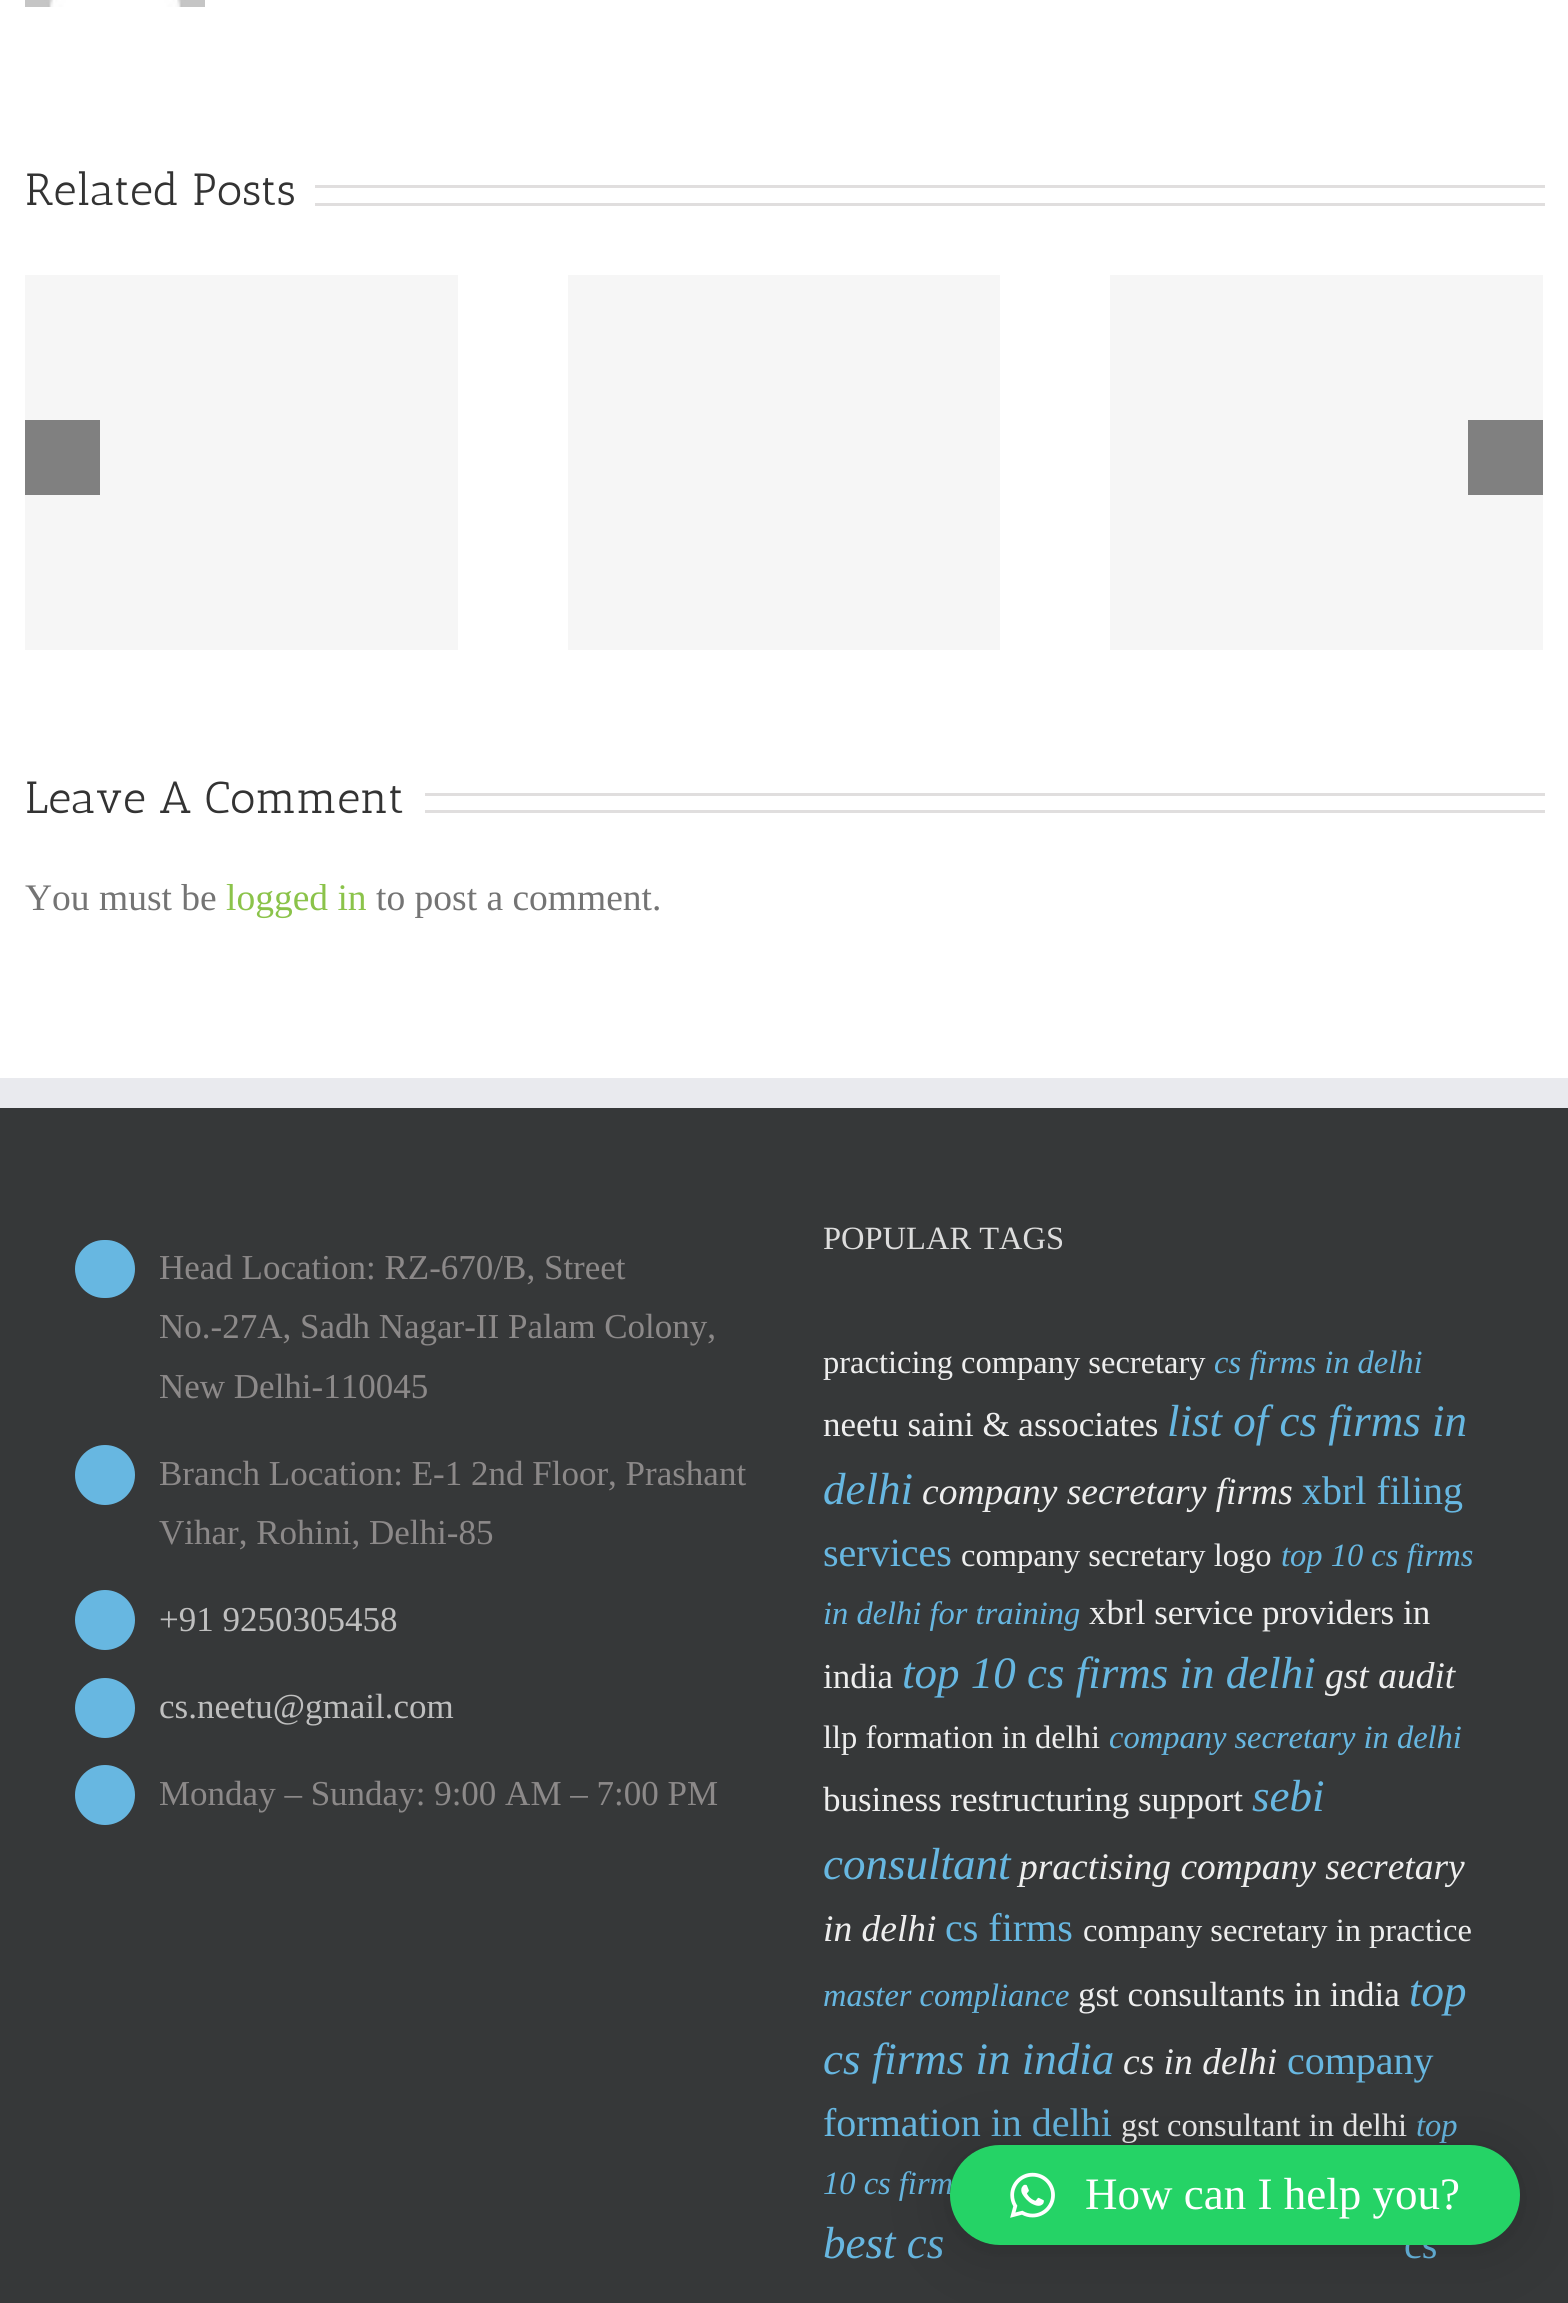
#include <cairo.h>
#include <math.h>
#include <stddef.h>

static cairo_t *ctx;

static void use_color(int r, int g, int b) {
    cairo_set_source_rgb(ctx, r / 255.0, g / 255.0, b / 255.0);
}

static void round_rect(double x, double y, double w, double h, double r) {
    cairo_new_sub_path(ctx);
    cairo_arc(ctx, x + w - r, y + h - r, r, 0, M_PI / 2);
    cairo_arc(ctx, x + r, y + h - r, r, M_PI / 2, M_PI);
    cairo_arc(ctx, x + r, y + r, r, M_PI, 1.5 * M_PI);
    cairo_arc(ctx, x + w - r, y + r, r, 1.5 * M_PI, 2 * M_PI);
    cairo_close_path(ctx);
}

static void shadow(double x, double y, double w, double h, double r, double blur, double alpha) {
    cairo_push_group_with_content(ctx, CAIRO_CONTENT_ALPHA);
    cairo_set_operator(ctx, CAIRO_OPERATOR_SOURCE);
    for (int i = 15; i >= -15 && fmin(w, h) + blur * i / 3 > 0; i -= 2) {
        double e = blur * i / 6;
        cairo_set_source_rgba(ctx, 0, 0, 0, alpha * erfc((i - 1) / 8.5) / 2);
        round_rect(x - e, y - e, w + 2 * e, h + 2 * e, fmax(0, fmin(r + e + blur * .6, fmin(w, h) / 2 + e)));
        cairo_fill(ctx);
    }
    cairo_pattern_t *soft = cairo_pop_group(ctx);
    cairo_mask(ctx, soft);
    cairo_pattern_destroy(soft);
}

static void picture(const char *path, double x, double y, double w, double h) {
    cairo_surface_t *image = cairo_image_surface_create_from_png(path);
    cairo_save(ctx);
    cairo_set_source_surface(ctx, image, x, y);
    cairo_rectangle(ctx, x, y, w, h);
    cairo_fill(ctx);
    cairo_restore(ctx);
    cairo_surface_destroy(image);
}

int main(void) {
    cairo_surface_t *surface = cairo_image_surface_create(CAIRO_FORMAT_RGB24, 1568, 2303);
    ctx = cairo_create(surface);
    cairo_font_options_t *options = cairo_font_options_create();
    cairo_font_options_set_hint_metrics(options, CAIRO_HINT_METRICS_OFF);
    cairo_font_options_set_hint_style(options, CAIRO_HINT_STYLE_NONE);
    cairo_set_font_options(ctx, options);
    cairo_set_miter_limit(ctx, 4);
    use_color(255, 255, 255);
    cairo_paint(ctx);
    picture("img1.png", 25, 0, 180, 7);
    cairo_select_font_face(ctx, "Antic Slab", CAIRO_FONT_SLANT_NORMAL, CAIRO_FONT_WEIGHT_NORMAL);
    cairo_set_font_size(ctx, 45);
    use_color(51, 51, 51);
    cairo_move_to(ctx, 25, 205);
    cairo_show_text(ctx, "Related Posts");
    use_color(224, 222, 222);
    cairo_rectangle(ctx, 315, 185, 1230, 3);
    cairo_fill(ctx);
    cairo_rectangle(ctx, 315, 203, 1230, 3);
    cairo_fill(ctx);
    use_color(246, 246, 246);
    cairo_rectangle(ctx, 25, 275, 433, 375);
    cairo_fill(ctx);
    cairo_rectangle(ctx, 568, 275, 432, 375);
    cairo_fill(ctx);
    cairo_rectangle(ctx, 1110, 275, 433, 375);
    cairo_fill(ctx);
    use_color(128, 128, 128);
    cairo_rectangle(ctx, 25, 420, 75, 75);
    cairo_fill(ctx);
    cairo_rectangle(ctx, 1468, 420, 75, 75);
    cairo_fill(ctx);
    use_color(51, 51, 51);
    cairo_move_to(ctx, 25, 813);
    cairo_show_text(ctx, "Leave A Comment");
    use_color(224, 222, 222);
    cairo_rectangle(ctx, 425, 793, 1120, 3);
    cairo_fill(ctx);
    cairo_rectangle(ctx, 425, 810, 1120, 3);
    cairo_fill(ctx);
    cairo_select_font_face(ctx, "Liberation Serif", CAIRO_FONT_SLANT_NORMAL, CAIRO_FONT_WEIGHT_NORMAL);
    cairo_set_font_size(ctx, 37.5);
    use_color(116, 116, 116);
    cairo_move_to(ctx, 25, 910);
    cairo_show_text(ctx, "You must be");
    use_color(139, 195, 74);
    cairo_move_to(ctx, 226, 910);
    cairo_show_text(ctx, "logged in");
    use_color(116, 116, 116);
    cairo_move_to(ctx, 376, 910);
    cairo_show_text(ctx, "to post a comment.");
    use_color(54, 56, 57);
    cairo_rectangle(ctx, 0, 1108, 1568, 1195);
    cairo_fill(ctx);
    use_color(233, 234, 238);
    cairo_rectangle(ctx, 0, 1078, 1568, 30);
    cairo_fill(ctx);
    use_color(103, 183, 225);
    round_rect(75, 1240, 60, 58, 29);
    cairo_fill(ctx);
    cairo_set_font_size(ctx, 35);
    use_color(140, 137, 137);
    cairo_move_to(ctx, 159, 1279);
    cairo_show_text(ctx, "Head Location: RZ-670/B, Street");
    cairo_move_to(ctx, 159, 1338);
    cairo_show_text(ctx, "No.-27A, Sadh Nagar-II Palam Colony,");
    cairo_move_to(ctx, 159, 1398);
    cairo_show_text(ctx, "New Delhi-110045");
    use_color(103, 183, 225);
    cairo_new_path(ctx);
    cairo_arc(ctx, 105, 1475, 30, 0, 2 * M_PI);
    cairo_fill(ctx);
    use_color(140, 137, 137);
    cairo_move_to(ctx, 159, 1485);
    cairo_show_text(ctx, "Branch Location: E-1 2nd Floor, Prashant");
    cairo_move_to(ctx, 159, 1544);
    cairo_show_text(ctx, "Vihar, Rohini, Delhi-85");
    use_color(103, 183, 225);
    cairo_new_path(ctx);
    cairo_arc(ctx, 105, 1620, 30, 0, 2 * M_PI);
    cairo_fill(ctx);
    use_color(191, 191, 191);
    cairo_move_to(ctx, 159, 1631);
    cairo_show_text(ctx, "+91 9250305458");
    use_color(103, 183, 225);
    cairo_new_path(ctx);
    cairo_arc(ctx, 105, 1708, 30, 0, 2 * M_PI);
    cairo_fill(ctx);
    use_color(191, 191, 191);
    cairo_move_to(ctx, 159, 1718);
    cairo_show_text(ctx, "cs.neetu@gmail.com");
    use_color(103, 183, 225);
    cairo_new_path(ctx);
    cairo_arc(ctx, 105, 1795, 30, 0, 2 * M_PI);
    cairo_fill(ctx);
    use_color(140, 137, 137);
    cairo_move_to(ctx, 159, 1805);
    cairo_show_text(ctx, "Monday – Sunday: 9:00 AM – 7:00 PM");
    cairo_set_font_size(ctx, 32.5);
    use_color(221, 221, 221);
    cairo_move_to(ctx, 823, 1249);
    cairo_show_text(ctx, "POPULAR TAGS");
    use_color(238, 238, 238);
    cairo_move_to(ctx, 823, 1373);
    cairo_show_text(ctx, "practicing company secretary");
    cairo_select_font_face(ctx, "Liberation Serif", CAIRO_FONT_SLANT_ITALIC, CAIRO_FONT_WEIGHT_NORMAL);
    use_color(103, 183, 225);
    cairo_move_to(ctx, 1214, 1373);
    cairo_show_text(ctx, "cs firms in delhi");
    cairo_select_font_face(ctx, "Liberation Serif", CAIRO_FONT_SLANT_NORMAL, CAIRO_FONT_WEIGHT_NORMAL);
    cairo_set_font_size(ctx, 35);
    use_color(238, 238, 238);
    cairo_move_to(ctx, 823, 1436);
    cairo_show_text(ctx, "neetu saini & associates");
    cairo_select_font_face(ctx, "Liberation Serif", CAIRO_FONT_SLANT_ITALIC, CAIRO_FONT_WEIGHT_NORMAL);
    cairo_set_font_size(ctx, 45);
    use_color(103, 183, 225);
    cairo_move_to(ctx, 1167, 1436);
    cairo_show_text(ctx, "list of cs firms in");
    cairo_move_to(ctx, 823, 1504);
    cairo_show_text(ctx, "delhi");
    cairo_set_font_size(ctx, 37.5);
    use_color(238, 238, 238);
    cairo_move_to(ctx, 922, 1504);
    cairo_show_text(ctx, "company secretary firms");
    cairo_select_font_face(ctx, "Liberation Serif", CAIRO_FONT_SLANT_NORMAL, CAIRO_FONT_WEIGHT_NORMAL);
    cairo_set_font_size(ctx, 40);
    use_color(103, 183, 225);
    cairo_move_to(ctx, 1302, 1504);
    cairo_show_text(ctx, "xbrl filing");
    cairo_move_to(ctx, 823, 1566);
    cairo_show_text(ctx, "services");
    cairo_set_font_size(ctx, 32.5);
    use_color(238, 238, 238);
    cairo_move_to(ctx, 961, 1566);
    cairo_show_text(ctx, "company secretary logo");
    cairo_select_font_face(ctx, "Liberation Serif", CAIRO_FONT_SLANT_ITALIC, CAIRO_FONT_WEIGHT_NORMAL);
    use_color(103, 183, 225);
    cairo_move_to(ctx, 1281, 1566);
    cairo_show_text(ctx, "top 10 cs firms");
    cairo_move_to(ctx, 823, 1624);
    cairo_show_text(ctx, "in delhi for training");
    cairo_select_font_face(ctx, "Liberation Serif", CAIRO_FONT_SLANT_NORMAL, CAIRO_FONT_WEIGHT_NORMAL);
    cairo_set_font_size(ctx, 35);
    use_color(238, 238, 238);
    cairo_move_to(ctx, 1089, 1624);
    cairo_show_text(ctx, "xbrl service providers in");
    cairo_move_to(ctx, 823, 1688);
    cairo_show_text(ctx, "india");
    cairo_select_font_face(ctx, "Liberation Serif", CAIRO_FONT_SLANT_ITALIC, CAIRO_FONT_WEIGHT_NORMAL);
    cairo_set_font_size(ctx, 45);
    use_color(103, 183, 225);
    cairo_move_to(ctx, 902, 1688);
    cairo_show_text(ctx, "top 10 cs firms in delhi");
    cairo_set_font_size(ctx, 37.5);
    use_color(238, 238, 238);
    cairo_move_to(ctx, 1325, 1688);
    cairo_show_text(ctx, "gst audit");
    cairo_select_font_face(ctx, "Liberation Serif", CAIRO_FONT_SLANT_NORMAL, CAIRO_FONT_WEIGHT_NORMAL);
    cairo_set_font_size(ctx, 32.5);
    cairo_move_to(ctx, 823, 1748);
    cairo_show_text(ctx, "llp formation in delhi");
    cairo_select_font_face(ctx, "Liberation Serif", CAIRO_FONT_SLANT_ITALIC, CAIRO_FONT_WEIGHT_NORMAL);
    use_color(103, 183, 225);
    cairo_move_to(ctx, 1109, 1748);
    cairo_show_text(ctx, "company secretary in delhi");
    cairo_select_font_face(ctx, "Liberation Serif", CAIRO_FONT_SLANT_NORMAL, CAIRO_FONT_WEIGHT_NORMAL);
    cairo_set_font_size(ctx, 35);
    use_color(238, 238, 238);
    cairo_move_to(ctx, 823, 1811);
    cairo_show_text(ctx, "business restructuring support");
    cairo_select_font_face(ctx, "Liberation Serif", CAIRO_FONT_SLANT_ITALIC, CAIRO_FONT_WEIGHT_NORMAL);
    cairo_set_font_size(ctx, 45);
    use_color(103, 183, 225);
    cairo_move_to(ctx, 1252, 1811);
    cairo_show_text(ctx, "sebi");
    cairo_move_to(ctx, 823, 1879);
    cairo_show_text(ctx, "consultant");
    cairo_set_font_size(ctx, 37.5);
    use_color(238, 238, 238);
    cairo_move_to(ctx, 1019, 1879);
    cairo_show_text(ctx, "practising company secretary");
    cairo_move_to(ctx, 823, 1941);
    cairo_show_text(ctx, "in delhi");
    cairo_select_font_face(ctx, "Liberation Serif", CAIRO_FONT_SLANT_NORMAL, CAIRO_FONT_WEIGHT_NORMAL);
    cairo_set_font_size(ctx, 40);
    use_color(103, 183, 225);
    cairo_move_to(ctx, 945, 1941);
    cairo_show_text(ctx, "cs firms");
    cairo_set_font_size(ctx, 32.5);
    use_color(238, 238, 238);
    cairo_move_to(ctx, 1083, 1941);
    cairo_show_text(ctx, "company secretary in practice");
    cairo_select_font_face(ctx, "Liberation Serif", CAIRO_FONT_SLANT_ITALIC, CAIRO_FONT_WEIGHT_NORMAL);
    use_color(103, 183, 225);
    cairo_move_to(ctx, 823, 2006);
    cairo_show_text(ctx, "master compliance");
    cairo_select_font_face(ctx, "Liberation Serif", CAIRO_FONT_SLANT_NORMAL, CAIRO_FONT_WEIGHT_NORMAL);
    cairo_set_font_size(ctx, 35);
    use_color(238, 238, 238);
    cairo_move_to(ctx, 1078, 2006);
    cairo_show_text(ctx, "gst consultants in india");
    cairo_select_font_face(ctx, "Liberation Serif", CAIRO_FONT_SLANT_ITALIC, CAIRO_FONT_WEIGHT_NORMAL);
    cairo_set_font_size(ctx, 45);
    use_color(103, 183, 225);
    cairo_move_to(ctx, 1409, 2006);
    cairo_show_text(ctx, "top");
    cairo_move_to(ctx, 823, 2074);
    cairo_show_text(ctx, "cs firms in india");
    cairo_set_font_size(ctx, 37.5);
    use_color(238, 238, 238);
    cairo_move_to(ctx, 1123, 2074);
    cairo_show_text(ctx, "cs in delhi");
    cairo_select_font_face(ctx, "Liberation Serif", CAIRO_FONT_SLANT_NORMAL, CAIRO_FONT_WEIGHT_NORMAL);
    cairo_set_font_size(ctx, 40);
    use_color(103, 183, 225);
    cairo_move_to(ctx, 1287, 2074);
    cairo_show_text(ctx, "company");
    cairo_move_to(ctx, 823, 2136);
    cairo_show_text(ctx, "formation in delhi");
    cairo_set_font_size(ctx, 32.5);
    use_color(238, 238, 238);
    cairo_move_to(ctx, 1121, 2136);
    cairo_show_text(ctx, "gst consultant in delhi");
    cairo_select_font_face(ctx, "Liberation Serif", CAIRO_FONT_SLANT_ITALIC, CAIRO_FONT_WEIGHT_NORMAL);
    use_color(103, 183, 225);
    cairo_move_to(ctx, 1416, 2136);
    cairo_show_text(ctx, "top");
    cairo_move_to(ctx, 823, 2194);
    cairo_show_text(ctx, "10 cs firm");
    cairo_set_font_size(ctx, 45);
    cairo_move_to(ctx, 823, 2258);
    cairo_show_text(ctx, "best cs");
    cairo_select_font_face(ctx, "Liberation Serif", CAIRO_FONT_SLANT_NORMAL, CAIRO_FONT_WEIGHT_NORMAL);
    cairo_set_font_size(ctx, 40);
    cairo_move_to(ctx, 1404, 2258);
    cairo_show_text(ctx, "cs");
    use_color(0, 0, 0);
    shadow(950, 2150, 570, 100, 50, 40, 0.16);
    shadow(950, 2148, 570, 100, 50, 7.5, 0.06);
    use_color(37, 211, 102);
    round_rect(950, 2145, 570, 100, 50);
    cairo_fill(ctx);
    picture("img2.png", 1010, 2172, 45, 46);
    cairo_set_font_size(ctx, 45);
    use_color(255, 255, 255);
    cairo_move_to(ctx, 1085, 2209);
    cairo_show_text(ctx, "How can I help you?");
    cairo_surface_write_to_png(surface, "result.png");
    cairo_font_options_destroy(options);
    cairo_destroy(ctx);
    cairo_surface_destroy(surface);
    return 0;
}
